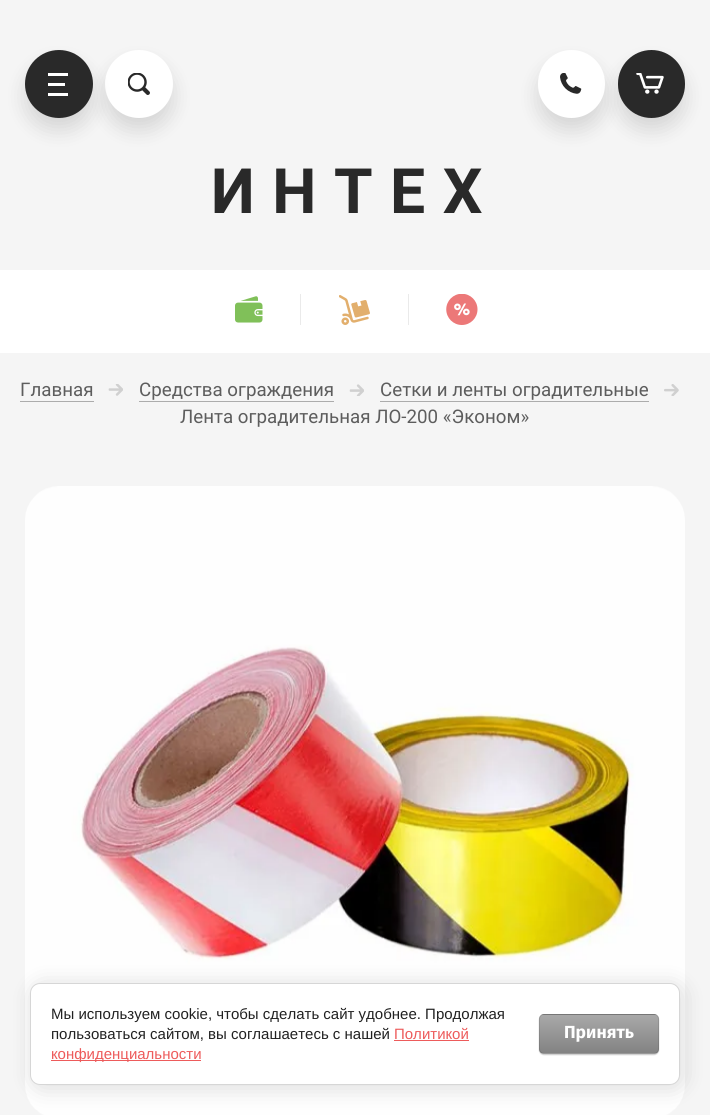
#include <cairo.h>
#include <math.h>
#include <stddef.h>

static cairo_t *ctx;

static void use_color(int r, int g, int b) {
    cairo_set_source_rgb(ctx, r / 255.0, g / 255.0, b / 255.0);
}

static void spaced_text(double x, double y, const char *s, double letter, double word) {
    cairo_move_to(ctx, x, y);
    while (*s) {
        char ch[5] = {0};
        int n = 0;
        do ch[n++] = *s++; while ((*s & 0xC0) == 0x80);
        cairo_show_text(ctx, ch);
        cairo_rel_move_to(ctx, letter + word * (*ch == ' '), 0);
    }
}

static void round_rect(double x, double y, double w, double h, double r) {
    cairo_new_sub_path(ctx);
    cairo_arc(ctx, x + w - r, y + h - r, r, 0, M_PI / 2);
    cairo_arc(ctx, x + r, y + h - r, r, M_PI / 2, M_PI);
    cairo_arc(ctx, x + r, y + r, r, M_PI, 1.5 * M_PI);
    cairo_arc(ctx, x + w - r, y + r, r, 1.5 * M_PI, 2 * M_PI);
    cairo_close_path(ctx);
}

static void shadow(double x, double y, double w, double h, double r, double blur, double alpha) {
    cairo_push_group_with_content(ctx, CAIRO_CONTENT_ALPHA);
    cairo_set_operator(ctx, CAIRO_OPERATOR_SOURCE);
    for (int i = 15; i >= -15 && fmin(w, h) + blur * i / 3 > 0; i -= 2) {
        double e = blur * i / 6;
        cairo_set_source_rgba(ctx, 0, 0, 0, alpha * erfc((i - 1) / 8.5) / 2);
        round_rect(x - e, y - e, w + 2 * e, h + 2 * e, fmax(0, fmin(r + e + blur * .6, fmin(w, h) / 2 + e)));
        cairo_fill(ctx);
    }
    cairo_pattern_t *soft = cairo_pop_group(ctx);
    cairo_mask(ctx, soft);
    cairo_pattern_destroy(soft);
}

static void picture(const char *path, double x, double y, double w, double h) {
    cairo_surface_t *image = cairo_image_surface_create_from_png(path);
    cairo_save(ctx);
    cairo_set_source_surface(ctx, image, x, y);
    cairo_rectangle(ctx, x, y, w, h);
    cairo_fill(ctx);
    cairo_restore(ctx);
    cairo_surface_destroy(image);
}

int main(void) {
    cairo_surface_t *surface = cairo_image_surface_create(CAIRO_FORMAT_RGB24, 710, 1115);
    ctx = cairo_create(surface);
    cairo_font_options_t *options = cairo_font_options_create();
    cairo_font_options_set_hint_metrics(options, CAIRO_HINT_METRICS_OFF);
    cairo_font_options_set_hint_style(options, CAIRO_HINT_STYLE_NONE);
    cairo_set_font_options(ctx, options);
    cairo_set_miter_limit(ctx, 4);
    cairo_pattern_t *gradient;
    use_color(245, 245, 245);
    cairo_paint(ctx);
    use_color(0, 0, 0);
    shadow(105, 63, 68, 67, 33.5, 9.5, 0.13);
    use_color(255, 255, 255);
    cairo_arc(ctx, 139, 84, 34, 0, 2 * M_PI);
    cairo_fill(ctx);
    use_color(0, 0, 0);
    shadow(25, 63, 68, 67, 33.5, 9.5, 0.13);
    use_color(41, 41, 41);
    cairo_arc(ctx, 59, 84, 34, 0, 2 * M_PI);
    cairo_fill(ctx);
    use_color(255, 255, 255);
    cairo_rectangle(ctx, 48, 73, 20, 3);
    cairo_fill(ctx);
    cairo_rectangle(ctx, 48, 83, 17, 3);
    cairo_fill(ctx);
    cairo_rectangle(ctx, 48, 93, 20, 3);
    cairo_fill(ctx);
    picture("img1.png", 128, 73, 22, 22);
    use_color(0, 0, 0);
    shadow(538, 63, 67, 67, 33.5, 9.5, 0.13);
    use_color(255, 255, 255);
    round_rect(538, 50, 67, 68, 33.5);
    cairo_fill(ctx);
    picture("img2.png", 560, 73, 22, 21);
    use_color(0, 0, 0);
    shadow(618, 63, 67, 67, 33.5, 9.5, 0.13);
    use_color(41, 41, 41);
    round_rect(618, 50, 67, 68, 33.5);
    cairo_fill(ctx);
    picture("img3.png", 636, 73, 28, 21);
    cairo_select_font_face(ctx, "Roboto", CAIRO_FONT_SLANT_NORMAL, CAIRO_FONT_WEIGHT_BOLD);
    cairo_set_font_size(ctx, 62.5);
    spaced_text(211, 213, "ИНТЕХ", 17.5, 0);
    use_color(255, 255, 255);
    cairo_rectangle(ctx, 0, 270, 710, 83);
    cairo_fill(ctx);
    picture("img4.png", 235, 296, 28, 27);
    use_color(234, 234, 234);
    cairo_rectangle(ctx, 300, 294, 1, 31);
    cairo_fill(ctx);
    picture("img5.png", 339, 295, 31, 30);
    cairo_rectangle(ctx, 408, 294, 1, 31);
    cairo_fill(ctx);
    picture("img6.png", 446, 294, 32, 31);
    cairo_select_font_face(ctx, "Roboto", CAIRO_FONT_SLANT_NORMAL, CAIRO_FONT_WEIGHT_NORMAL);
    cairo_set_font_size(ctx, 18.75);
    use_color(93, 93, 93);
    cairo_move_to(ctx, 20, 396);
    cairo_show_text(ctx, "Главная");
    use_color(172, 172, 172);
    cairo_rectangle(ctx, 20, 401, 74, 1);
    cairo_fill(ctx);
    picture("img7.png", 108, 384, 15, 12);
    use_color(93, 93, 93);
    cairo_move_to(ctx, 139, 396);
    cairo_show_text(ctx, "Средства ограждения");
    use_color(172, 172, 172);
    cairo_rectangle(ctx, 139, 401, 195, 1);
    cairo_fill(ctx);
    picture("img8.png", 349, 384, 15, 12);
    use_color(93, 93, 93);
    cairo_move_to(ctx, 380, 396);
    cairo_show_text(ctx, "Сетки и ленты оградительные");
    use_color(172, 172, 172);
    cairo_rectangle(ctx, 380, 401, 269, 1);
    cairo_fill(ctx);
    picture("img9.png", 664, 384, 15, 12);
    use_color(93, 93, 93);
    cairo_move_to(ctx, 180, 423);
    cairo_show_text(ctx, "Лента оградительная ЛО-200 «Эконом»");
    picture("img10.png", 25, 486, 660, 629);
    use_color(0, 0, 0);
    shadow(33, 985, 650, 103, 10, 11, 0.14);
    use_color(255, 255, 255);
    round_rect(30.5, 983.5, 649, 101, 9.5);
    cairo_fill_preserve(ctx);
    use_color(214, 214, 214);
    cairo_set_line_width(ctx, 1);
    cairo_stroke(ctx);
    cairo_select_font_face(ctx, "Liberation Sans", CAIRO_FONT_SLANT_NORMAL, CAIRO_FONT_WEIGHT_NORMAL);
    cairo_set_font_size(ctx, 15);
    use_color(33, 33, 33);
    cairo_move_to(ctx, 51, 1019);
    cairo_show_text(ctx, "Мы используем cookie, чтобы сделать сайт удобнее. Продолжая");
    cairo_move_to(ctx, 51, 1039);
    cairo_show_text(ctx, "пользоваться сайтом, вы соглашаетесь с нашей");
    use_color(237, 91, 91);
    cairo_move_to(ctx, 394, 1039);
    cairo_show_text(ctx, "Политикой");
    cairo_rectangle(ctx, 394, 1040, 75, 1);
    cairo_fill(ctx);
    cairo_rectangle(ctx, 51, 1060, 150, 1);
    cairo_fill(ctx);
    cairo_move_to(ctx, 51, 1059);
    cairo_show_text(ctx, "конфиденциальности");
    use_color(0, 0, 0);
    shadow(539, 1015, 120, 40, 5, 0.5, 0.2);
    cairo_save(ctx);
    round_rect(539, 1014, 120, 40, 5);
    cairo_clip(ctx);
    gradient = cairo_pattern_create_linear(599, 978, 599, 1015);
    cairo_pattern_add_color_stop_rgba(gradient, 0, 0.659, 0.659, 0.659, 1);
    cairo_pattern_add_color_stop_rgba(gradient, 1, 0.51, 0.51, 0.51, 1);
    cairo_set_source(ctx, gradient);
    cairo_pattern_destroy(gradient);
    cairo_rectangle(ctx, 539, 1014, 120, 1);
    cairo_fill(ctx);
    gradient = cairo_pattern_create_linear(599, 1015, 599, 1053);
    cairo_pattern_add_color_stop_rgba(gradient, 0, 0.659, 0.659, 0.659, 1);
    cairo_pattern_add_color_stop_rgba(gradient, 1, 0.51, 0.51, 0.51, 1);
    cairo_set_source(ctx, gradient);
    cairo_pattern_destroy(gradient);
    cairo_rectangle(ctx, 539, 1015, 120, 38);
    cairo_fill(ctx);
    gradient = cairo_pattern_create_linear(599, 1053, 599, 1090);
    cairo_pattern_add_color_stop_rgba(gradient, 0, 0.659, 0.659, 0.659, 1);
    cairo_pattern_add_color_stop_rgba(gradient, 1, 0.51, 0.51, 0.51, 1);
    cairo_set_source(ctx, gradient);
    cairo_pattern_destroy(gradient);
    cairo_rectangle(ctx, 539, 1053, 120, 1);
    cairo_fill(ctx);
    cairo_restore(ctx);
    round_rect(539.5, 1014.5, 119, 39, 4.5);
    cairo_set_source_rgba(ctx, 0, 0, 0, 0.1);
    cairo_stroke(ctx);
    cairo_select_font_face(ctx, "Fira Sans", CAIRO_FONT_SLANT_NORMAL, CAIRO_FONT_WEIGHT_BOLD);
    cairo_set_font_size(ctx, 17.5);
    use_color(255, 255, 255);
    cairo_move_to(ctx, 564, 1038);
    cairo_show_text(ctx, "Принять");
    cairo_surface_write_to_png(surface, "result.png");
    cairo_font_options_destroy(options);
    cairo_destroy(ctx);
    cairo_surface_destroy(surface);
    return 0;
}
